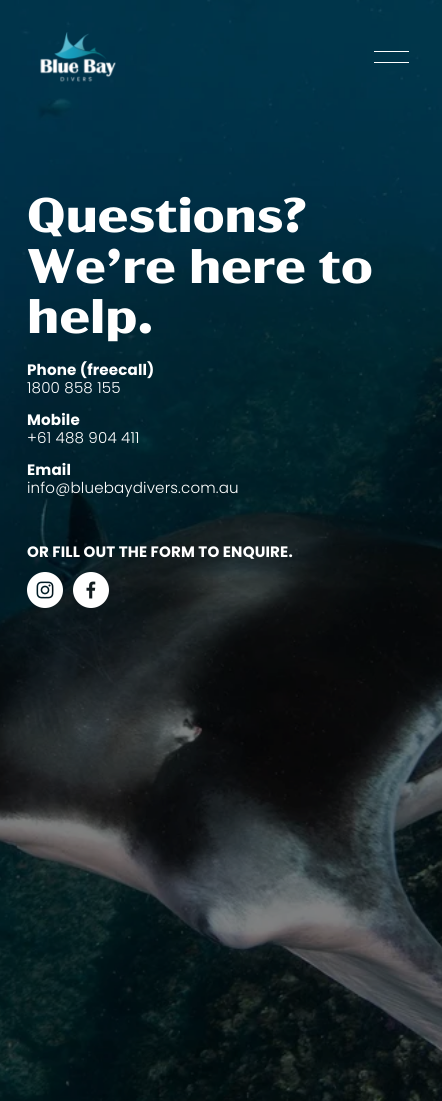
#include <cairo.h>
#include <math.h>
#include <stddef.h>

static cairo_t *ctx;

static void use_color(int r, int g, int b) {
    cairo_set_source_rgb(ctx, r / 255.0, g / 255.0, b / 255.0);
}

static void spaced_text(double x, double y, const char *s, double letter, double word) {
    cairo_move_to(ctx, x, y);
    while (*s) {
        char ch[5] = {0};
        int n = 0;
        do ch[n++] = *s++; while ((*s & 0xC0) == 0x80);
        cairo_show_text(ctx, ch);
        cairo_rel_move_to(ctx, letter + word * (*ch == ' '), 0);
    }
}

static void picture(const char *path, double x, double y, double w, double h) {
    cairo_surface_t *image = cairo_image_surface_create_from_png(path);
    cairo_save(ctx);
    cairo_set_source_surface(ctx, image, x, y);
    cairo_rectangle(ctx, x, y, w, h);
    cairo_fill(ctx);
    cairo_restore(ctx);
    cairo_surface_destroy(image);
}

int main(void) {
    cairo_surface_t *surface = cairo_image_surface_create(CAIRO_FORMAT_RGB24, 442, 1101);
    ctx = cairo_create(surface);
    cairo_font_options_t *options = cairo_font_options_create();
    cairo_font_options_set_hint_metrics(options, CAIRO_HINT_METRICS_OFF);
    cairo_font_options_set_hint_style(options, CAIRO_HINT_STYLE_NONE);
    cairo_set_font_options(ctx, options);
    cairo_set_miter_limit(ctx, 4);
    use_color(255, 255, 255);
    cairo_paint(ctx);
    picture("img2.png", 0, 0, 442, 1101);
    picture("img1.png", 40, 32, 76, 50);
    use_color(255, 255, 255);
    cairo_rectangle(ctx, 374, 51, 35, 1);
    cairo_fill(ctx);
    cairo_rectangle(ctx, 374, 62, 35, 1);
    cairo_fill(ctx);
    cairo_select_font_face(ctx, "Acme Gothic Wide", CAIRO_FONT_SLANT_NORMAL, CAIRO_FONT_WEIGHT_BOLD);
    cairo_set_font_size(ctx, 48.5);
    cairo_move_to(ctx, 27, 232);
    cairo_show_text(ctx, "Questions?");
    cairo_move_to(ctx, 27, 283);
    cairo_show_text(ctx, "We’re here to");
    cairo_move_to(ctx, 27, 333);
    cairo_show_text(ctx, "help.");
    cairo_select_font_face(ctx, "Poppins", CAIRO_FONT_SLANT_NORMAL, CAIRO_FONT_WEIGHT_BOLD);
    cairo_set_font_size(ctx, 15.1);
    spaced_text(27, 375, "Phone (freecall)", 0.15, 0);
    cairo_select_font_face(ctx, "Poppins Light", CAIRO_FONT_SLANT_NORMAL, CAIRO_FONT_WEIGHT_NORMAL);
    spaced_text(27, 393, "1800 858 155", 0.15, 0);
    cairo_select_font_face(ctx, "Poppins", CAIRO_FONT_SLANT_NORMAL, CAIRO_FONT_WEIGHT_BOLD);
    spaced_text(27, 425, "Mobile", 0.15, 0);
    cairo_select_font_face(ctx, "Poppins Light", CAIRO_FONT_SLANT_NORMAL, CAIRO_FONT_WEIGHT_NORMAL);
    spaced_text(27, 443, "+61 488 904 411", 0.15, 0);
    cairo_select_font_face(ctx, "Poppins", CAIRO_FONT_SLANT_NORMAL, CAIRO_FONT_WEIGHT_BOLD);
    spaced_text(27, 475, "Email", 0.15, 0);
    cairo_select_font_face(ctx, "Poppins Light", CAIRO_FONT_SLANT_NORMAL, CAIRO_FONT_WEIGHT_NORMAL);
    spaced_text(27, 493, "info@bluebaydivers.com.au", 0.15, 0);
    cairo_select_font_face(ctx, "Poppins", CAIRO_FONT_SLANT_NORMAL, CAIRO_FONT_WEIGHT_BOLD);
    spaced_text(27, 557, "OR FILL OUT THE FORM TO ENQUIRE.", 0.15, 0);
    picture("img3.png", 27, 572, 36, 36);
    picture("img4.png", 73, 572, 36, 36);
    cairo_surface_write_to_png(surface, "result.png");
    cairo_font_options_destroy(options);
    cairo_destroy(ctx);
    cairo_surface_destroy(surface);
    return 0;
}
